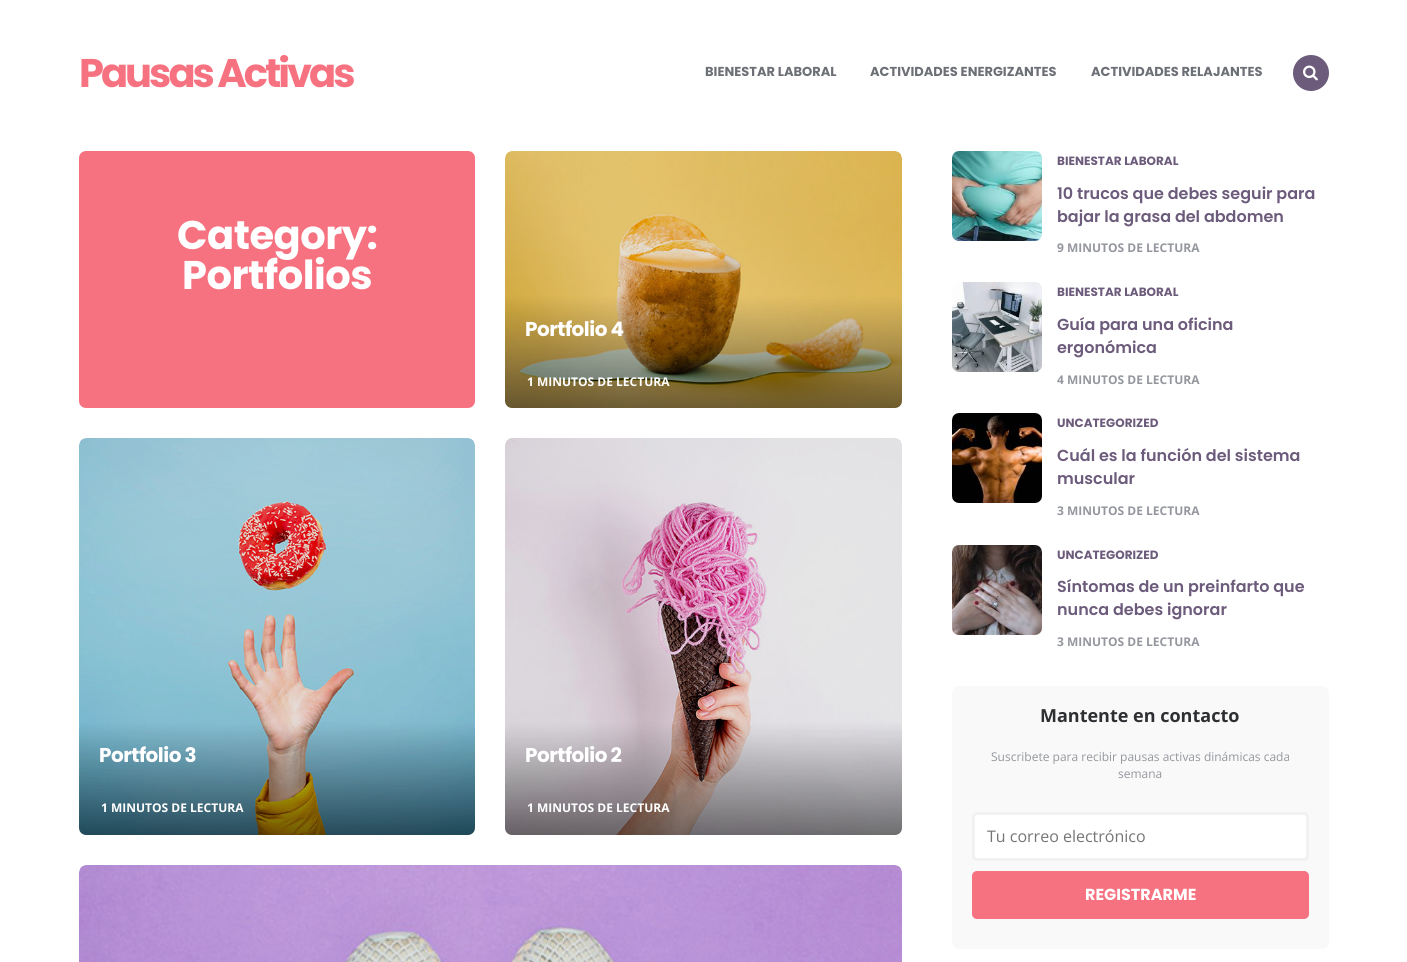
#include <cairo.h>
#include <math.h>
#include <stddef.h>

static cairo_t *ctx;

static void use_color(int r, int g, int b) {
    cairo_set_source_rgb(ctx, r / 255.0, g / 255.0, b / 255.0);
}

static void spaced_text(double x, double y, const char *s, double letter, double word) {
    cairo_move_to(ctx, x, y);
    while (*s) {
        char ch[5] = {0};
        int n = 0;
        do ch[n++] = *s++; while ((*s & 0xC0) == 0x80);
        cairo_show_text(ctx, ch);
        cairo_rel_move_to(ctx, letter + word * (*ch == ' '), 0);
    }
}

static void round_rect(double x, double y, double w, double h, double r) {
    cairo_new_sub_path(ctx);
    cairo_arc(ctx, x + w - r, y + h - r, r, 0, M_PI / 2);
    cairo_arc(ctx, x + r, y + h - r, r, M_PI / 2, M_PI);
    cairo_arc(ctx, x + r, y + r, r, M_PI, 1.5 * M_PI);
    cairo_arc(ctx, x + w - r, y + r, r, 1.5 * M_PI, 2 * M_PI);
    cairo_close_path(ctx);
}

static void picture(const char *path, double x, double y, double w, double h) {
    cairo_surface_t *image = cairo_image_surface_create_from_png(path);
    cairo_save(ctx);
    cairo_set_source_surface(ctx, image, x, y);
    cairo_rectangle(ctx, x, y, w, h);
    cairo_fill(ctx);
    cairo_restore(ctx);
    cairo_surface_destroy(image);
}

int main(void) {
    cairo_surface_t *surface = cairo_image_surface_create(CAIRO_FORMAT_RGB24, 1407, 962);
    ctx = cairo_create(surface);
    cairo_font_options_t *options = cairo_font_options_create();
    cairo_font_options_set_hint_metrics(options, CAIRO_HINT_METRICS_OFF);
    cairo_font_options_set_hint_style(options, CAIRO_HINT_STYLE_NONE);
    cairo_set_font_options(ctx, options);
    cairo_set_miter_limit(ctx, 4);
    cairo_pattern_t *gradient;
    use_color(255, 255, 255);
    cairo_paint(ctx);
    cairo_select_font_face(ctx, "Poppins", CAIRO_FONT_SLANT_NORMAL, CAIRO_FONT_WEIGHT_BOLD);
    cairo_set_font_size(ctx, 40);
    use_color(246, 114, 128);
    spaced_text(79, 87, "Pausas Activas", -3, 0);
    cairo_set_font_size(ctx, 13);
    use_color(108, 111, 118);
    cairo_move_to(ctx, 705, 76);
    cairo_show_text(ctx, "BIENESTAR LABORAL");
    cairo_move_to(ctx, 870, 76);
    cairo_show_text(ctx, "ACTIVIDADES ENERGIZANTES");
    cairo_move_to(ctx, 1091, 76);
    cairo_show_text(ctx, "ACTIVIDADES RELAJANTES");
    use_color(108, 91, 123);
    cairo_new_path(ctx);
    cairo_arc(ctx, 1311, 73, 18, 0, 2 * M_PI);
    cairo_fill(ctx);
    picture("img1.png", 1303, 65, 15, 16);
    use_color(246, 114, 128);
    round_rect(79, 151, 396, 257, 7);
    cairo_fill(ctx);
    cairo_set_font_size(ctx, 40);
    use_color(255, 255, 255);
    spaced_text(177, 249, "Category:", -0.5, 0);
    spaced_text(182, 289, "Portfolios", -0.5, 0);
    picture("img2.png", 505, 151, 397, 257);
    gradient = cairo_pattern_create_linear(704, 408, 704, 296);
    cairo_pattern_add_color_stop_rgba(gradient, 0, 0, 0, 0, 0.5);
    cairo_pattern_add_color_stop_rgba(gradient, 1, 0, 0, 0, 0);
    cairo_set_source(ctx, gradient);
    cairo_pattern_destroy(gradient);
    round_rect(505, 296, 397, 112, 7);
    cairo_fill(ctx);
    cairo_set_font_size(ctx, 20);
    use_color(255, 255, 255);
    spaced_text(525, 336, "Portfolio 4", -0.5, 0);
    cairo_select_font_face(ctx, "Open Sans", CAIRO_FONT_SLANT_NORMAL, CAIRO_FONT_WEIGHT_BOLD);
    cairo_set_font_size(ctx, 12);
    cairo_move_to(ctx, 527, 386);
    cairo_show_text(ctx, "1 MINUTOS DE LECTURA");
    picture("img3.png", 79, 438, 396, 397);
    gradient = cairo_pattern_create_linear(277, 835, 277, 722);
    cairo_pattern_add_color_stop_rgba(gradient, 0, 0, 0, 0, 0.5);
    cairo_pattern_add_color_stop_rgba(gradient, 1, 0, 0, 0, 0);
    cairo_set_source(ctx, gradient);
    cairo_pattern_destroy(gradient);
    round_rect(79, 722, 396, 113, 7);
    cairo_fill(ctx);
    cairo_select_font_face(ctx, "Poppins", CAIRO_FONT_SLANT_NORMAL, CAIRO_FONT_WEIGHT_BOLD);
    cairo_set_font_size(ctx, 20);
    use_color(255, 255, 255);
    spaced_text(99, 762, "Portfolio 3", -0.5, 0);
    cairo_select_font_face(ctx, "Open Sans", CAIRO_FONT_SLANT_NORMAL, CAIRO_FONT_WEIGHT_BOLD);
    cairo_set_font_size(ctx, 12);
    cairo_move_to(ctx, 101, 812);
    cairo_show_text(ctx, "1 MINUTOS DE LECTURA");
    picture("img4.png", 505, 438, 397, 397);
    gradient = cairo_pattern_create_linear(704, 835, 704, 722);
    cairo_pattern_add_color_stop_rgba(gradient, 0, 0, 0, 0, 0.5);
    cairo_pattern_add_color_stop_rgba(gradient, 1, 0, 0, 0, 0);
    cairo_set_source(ctx, gradient);
    cairo_pattern_destroy(gradient);
    round_rect(505, 722, 397, 113, 7);
    cairo_fill(ctx);
    cairo_select_font_face(ctx, "Poppins", CAIRO_FONT_SLANT_NORMAL, CAIRO_FONT_WEIGHT_BOLD);
    cairo_set_font_size(ctx, 20);
    use_color(255, 255, 255);
    spaced_text(525, 762, "Portfolio 2", -0.5, 0);
    cairo_select_font_face(ctx, "Open Sans", CAIRO_FONT_SLANT_NORMAL, CAIRO_FONT_WEIGHT_BOLD);
    cairo_set_font_size(ctx, 12);
    cairo_move_to(ctx, 527, 812);
    cairo_show_text(ctx, "1 MINUTOS DE LECTURA");
    picture("img5.png", 79, 865, 823, 97);
    picture("img6.png", 952, 151, 90, 90);
    cairo_select_font_face(ctx, "Poppins", CAIRO_FONT_SLANT_NORMAL, CAIRO_FONT_WEIGHT_BOLD);
    use_color(108, 91, 123);
    cairo_move_to(ctx, 1057, 165);
    cairo_show_text(ctx, "BIENESTAR LABORAL");
    cairo_select_font_face(ctx, "Poppins SemiBold", CAIRO_FONT_SLANT_NORMAL, CAIRO_FONT_WEIGHT_NORMAL);
    cairo_set_font_size(ctx, 16);
    cairo_move_to(ctx, 1057, 199);
    cairo_show_text(ctx, "10 trucos que debes seguir para");
    cairo_move_to(ctx, 1057, 222);
    cairo_show_text(ctx, "bajar la grasa del abdomen");
    cairo_select_font_face(ctx, "Open Sans", CAIRO_FONT_SLANT_NORMAL, CAIRO_FONT_WEIGHT_BOLD);
    cairo_set_font_size(ctx, 12);
    use_color(148, 151, 158);
    cairo_move_to(ctx, 1057, 252);
    cairo_show_text(ctx, "9 MINUTOS DE LECTURA");
    picture("img7.png", 952, 282, 90, 90);
    cairo_select_font_face(ctx, "Poppins", CAIRO_FONT_SLANT_NORMAL, CAIRO_FONT_WEIGHT_BOLD);
    use_color(108, 91, 123);
    cairo_move_to(ctx, 1057, 296);
    cairo_show_text(ctx, "BIENESTAR LABORAL");
    cairo_select_font_face(ctx, "Poppins SemiBold", CAIRO_FONT_SLANT_NORMAL, CAIRO_FONT_WEIGHT_NORMAL);
    cairo_set_font_size(ctx, 16);
    cairo_move_to(ctx, 1057, 330);
    cairo_show_text(ctx, "Guía para una oficina");
    cairo_move_to(ctx, 1057, 353);
    cairo_show_text(ctx, "ergonómica");
    cairo_select_font_face(ctx, "Open Sans", CAIRO_FONT_SLANT_NORMAL, CAIRO_FONT_WEIGHT_BOLD);
    cairo_set_font_size(ctx, 12);
    use_color(148, 151, 158);
    cairo_move_to(ctx, 1057, 384);
    cairo_show_text(ctx, "4 MINUTOS DE LECTURA");
    picture("img8.png", 952, 413, 90, 90);
    cairo_select_font_face(ctx, "Poppins", CAIRO_FONT_SLANT_NORMAL, CAIRO_FONT_WEIGHT_BOLD);
    use_color(108, 91, 123);
    cairo_move_to(ctx, 1057, 427);
    cairo_show_text(ctx, "UNCATEGORIZED");
    cairo_select_font_face(ctx, "Poppins SemiBold", CAIRO_FONT_SLANT_NORMAL, CAIRO_FONT_WEIGHT_NORMAL);
    cairo_set_font_size(ctx, 16);
    cairo_move_to(ctx, 1057, 461);
    cairo_show_text(ctx, "Cuál es la función del sistema");
    cairo_move_to(ctx, 1057, 484);
    cairo_show_text(ctx, "muscular");
    cairo_select_font_face(ctx, "Open Sans", CAIRO_FONT_SLANT_NORMAL, CAIRO_FONT_WEIGHT_BOLD);
    cairo_set_font_size(ctx, 12);
    use_color(148, 151, 158);
    cairo_move_to(ctx, 1057, 515);
    cairo_show_text(ctx, "3 MINUTOS DE LECTURA");
    picture("img9.png", 952, 545, 90, 90);
    cairo_select_font_face(ctx, "Poppins", CAIRO_FONT_SLANT_NORMAL, CAIRO_FONT_WEIGHT_BOLD);
    use_color(108, 91, 123);
    cairo_move_to(ctx, 1057, 559);
    cairo_show_text(ctx, "UNCATEGORIZED");
    cairo_select_font_face(ctx, "Poppins SemiBold", CAIRO_FONT_SLANT_NORMAL, CAIRO_FONT_WEIGHT_NORMAL);
    cairo_set_font_size(ctx, 16);
    cairo_move_to(ctx, 1057, 592);
    cairo_show_text(ctx, "Síntomas de un preinfarto que");
    cairo_move_to(ctx, 1057, 615);
    cairo_show_text(ctx, "nunca debes ignorar");
    cairo_select_font_face(ctx, "Open Sans", CAIRO_FONT_SLANT_NORMAL, CAIRO_FONT_WEIGHT_BOLD);
    cairo_set_font_size(ctx, 12);
    use_color(148, 151, 158);
    cairo_move_to(ctx, 1057, 646);
    cairo_show_text(ctx, "3 MINUTOS DE LECTURA");
    use_color(249, 249, 249);
    round_rect(952, 686, 377, 263, 7);
    cairo_fill(ctx);
    cairo_set_font_size(ctx, 18);
    use_color(46, 47, 51);
    cairo_move_to(ctx, 1040, 722);
    cairo_show_text(ctx, "Mantente en contacto");
    cairo_select_font_face(ctx, "Open Sans", CAIRO_FONT_SLANT_NORMAL, CAIRO_FONT_WEIGHT_NORMAL);
    cairo_set_font_size(ctx, 12);
    use_color(148, 151, 158);
    cairo_move_to(ctx, 991, 761);
    cairo_show_text(ctx, "Suscribete para recibir pausas activas dinámicas cada");
    cairo_move_to(ctx, 1118, 778);
    cairo_show_text(ctx, "semana");
    use_color(255, 255, 255);
    round_rect(973.5, 813.5, 334, 46, 3.5);
    cairo_fill_preserve(ctx);
    use_color(241, 241, 241);
    cairo_set_line_width(ctx, 3);
    cairo_stroke(ctx);
    cairo_set_font_size(ctx, 16);
    use_color(117, 117, 117);
    cairo_move_to(ctx, 987, 842);
    cairo_show_text(ctx, "Tu correo electrónico");
    use_color(246, 114, 128);
    round_rect(972, 871, 337, 48, 5);
    cairo_fill(ctx);
    cairo_select_font_face(ctx, "Poppins", CAIRO_FONT_SLANT_NORMAL, CAIRO_FONT_WEIGHT_BOLD);
    use_color(255, 255, 255);
    cairo_move_to(ctx, 1085, 900);
    cairo_show_text(ctx, "REGISTRARME");
    cairo_surface_write_to_png(surface, "result.png");
    cairo_font_options_destroy(options);
    cairo_destroy(ctx);
    cairo_surface_destroy(surface);
    return 0;
}
